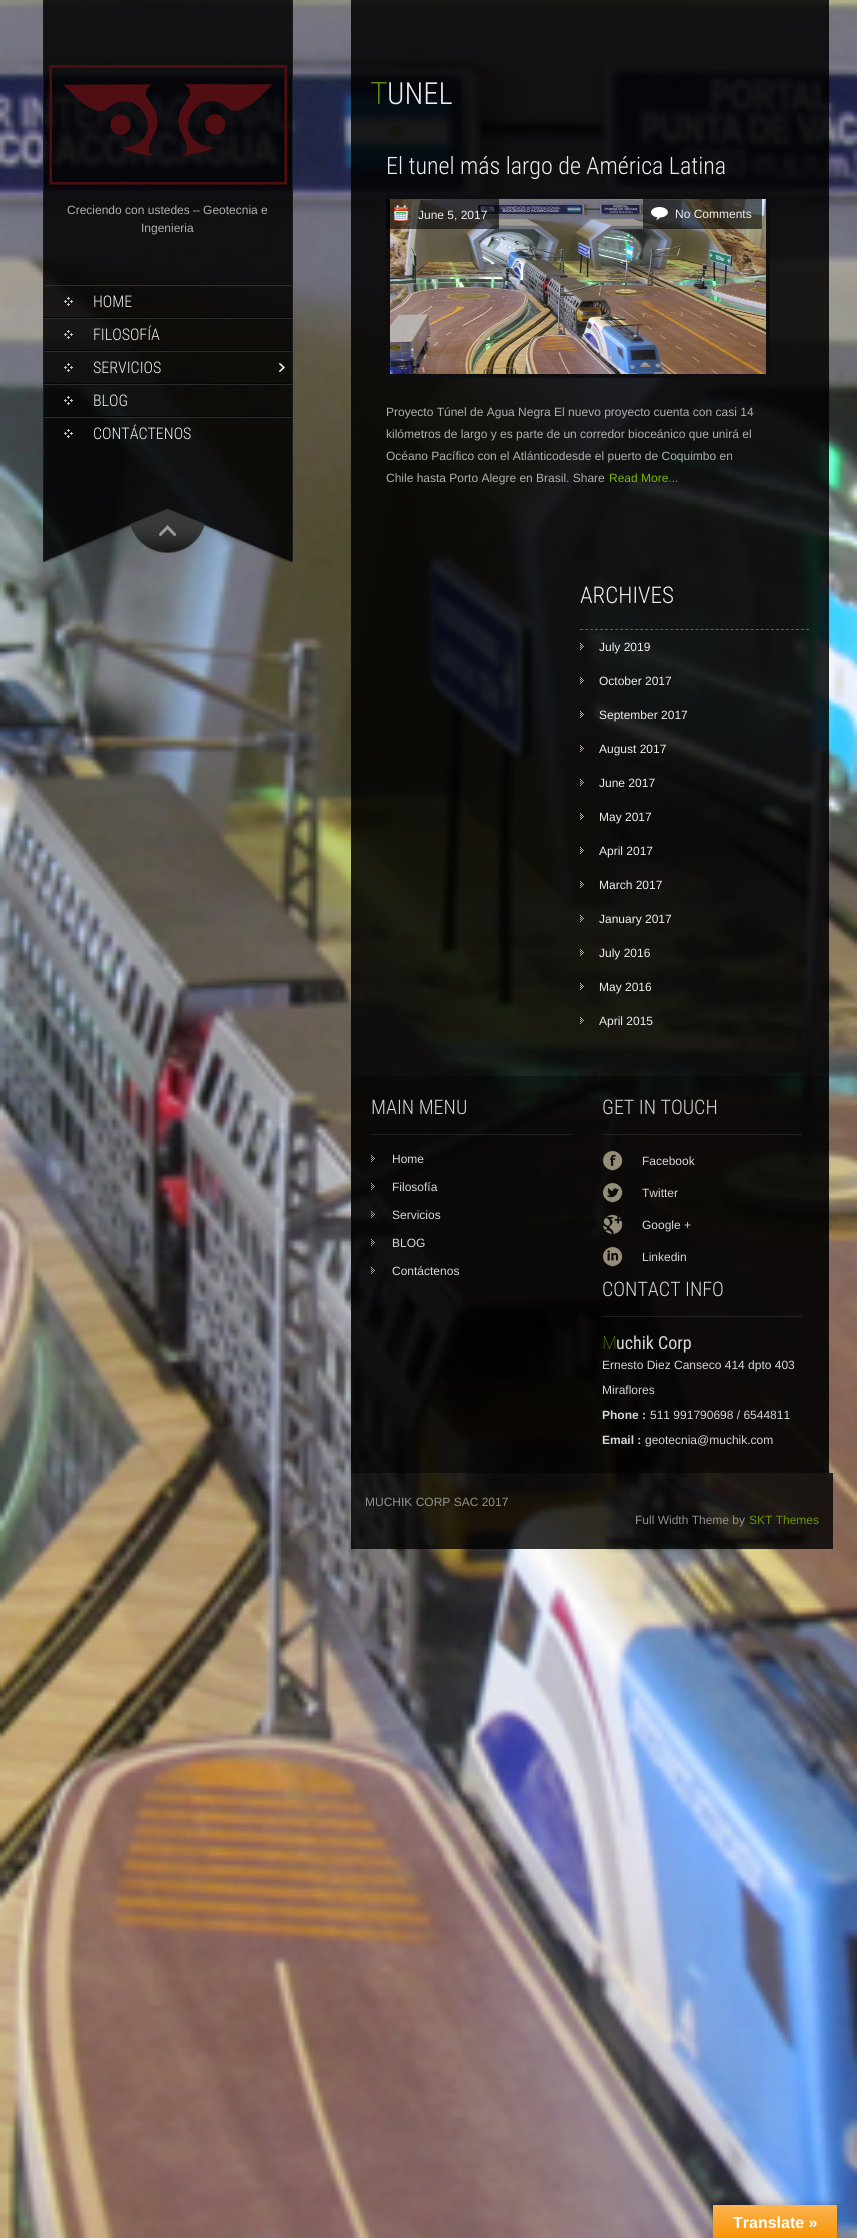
#include <cairo.h>
#include <math.h>
#include <stddef.h>

static cairo_t *ctx;

static void use_color(int r, int g, int b) {
    cairo_set_source_rgb(ctx, r / 255.0, g / 255.0, b / 255.0);
}

static void round_rect(double x, double y, double w, double h, double r) {
    cairo_new_sub_path(ctx);
    cairo_arc(ctx, x + w - r, y + h - r, r, 0, M_PI / 2);
    cairo_arc(ctx, x + r, y + h - r, r, M_PI / 2, M_PI);
    cairo_arc(ctx, x + r, y + r, r, M_PI, 1.5 * M_PI);
    cairo_arc(ctx, x + w - r, y + r, r, 1.5 * M_PI, 2 * M_PI);
    cairo_close_path(ctx);
}

static void shadow(double x, double y, double w, double h, double r, double blur, double alpha) {
    cairo_push_group_with_content(ctx, CAIRO_CONTENT_ALPHA);
    cairo_set_operator(ctx, CAIRO_OPERATOR_SOURCE);
    for (int i = 15; i >= -15 && fmin(w, h) + blur * i / 3 > 0; i -= 2) {
        double e = blur * i / 6;
        cairo_set_source_rgba(ctx, 0, 0, 0, alpha * erfc((i - 1) / 8.5) / 2);
        round_rect(x - e, y - e, w + 2 * e, h + 2 * e, fmax(0, fmin(r + e + blur * .6, fmin(w, h) / 2 + e)));
        cairo_fill(ctx);
    }
    cairo_pattern_t *soft = cairo_pop_group(ctx);
    cairo_mask(ctx, soft);
    cairo_pattern_destroy(soft);
}

static void picture(const char *path, double x, double y, double w, double h) {
    cairo_surface_t *image = cairo_image_surface_create_from_png(path);
    cairo_save(ctx);
    cairo_set_source_surface(ctx, image, x, y);
    cairo_rectangle(ctx, x, y, w, h);
    cairo_fill(ctx);
    cairo_restore(ctx);
    cairo_surface_destroy(image);
}

int main(void) {
    cairo_surface_t *surface = cairo_image_surface_create(CAIRO_FORMAT_RGB24, 857, 2238);
    ctx = cairo_create(surface);
    cairo_font_options_t *options = cairo_font_options_create();
    cairo_font_options_set_hint_metrics(options, CAIRO_HINT_METRICS_OFF);
    cairo_font_options_set_hint_style(options, CAIRO_HINT_STYLE_NONE);
    cairo_set_font_options(ctx, options);
    cairo_set_miter_limit(ctx, 4);
    cairo_pattern_t *gradient;
    use_color(255, 255, 255);
    cairo_paint(ctx);
    picture("img1.png", 0, 0, 857, 2238);
    use_color(27, 27, 27);
    cairo_rectangle(ctx, 292, 0, 1, 562);
    cairo_fill(ctx);
    cairo_rectangle(ctx, 43, 0, 1, 562);
    cairo_fill(ctx);
    cairo_set_source_rgba(ctx, 0, 0, 0, 0.85);
    cairo_rectangle(ctx, 44, 0, 248, 285);
    cairo_fill(ctx);
    picture("img2.png", 49, 65, 239, 120);
    cairo_select_font_face(ctx, "Liberation Sans", CAIRO_FONT_SLANT_NORMAL, CAIRO_FONT_WEIGHT_NORMAL);
    cairo_set_font_size(ctx, 12);
    use_color(174, 174, 174);
    cairo_move_to(ctx, 67, 214);
    cairo_show_text(ctx, "Creciendo con ustedes – Geotecnia e");
    cairo_move_to(ctx, 141, 232);
    cairo_show_text(ctx, "Ingenieria");
    cairo_set_source_rgba(ctx, 0, 0, 0, 0.85);
    cairo_rectangle(ctx, 44, 286, 248, 223);
    cairo_fill(ctx);
    use_color(44, 45, 46);
    cairo_rectangle(ctx, 44, 285, 248, 1);
    cairo_fill(ctx);
    use_color(4, 5, 6);
    cairo_rectangle(ctx, 44, 317, 248, 1);
    cairo_fill(ctx);
    picture("img3.png", 64, 297, 9, 9);
    cairo_select_font_face(ctx, "Roboto Condensed Light", CAIRO_FONT_SLANT_NORMAL, CAIRO_FONT_WEIGHT_NORMAL);
    cairo_set_font_size(ctx, 16);
    use_color(238, 237, 237);
    cairo_move_to(ctx, 93, 307);
    cairo_show_text(ctx, "HOME");
    use_color(44, 45, 46);
    cairo_rectangle(ctx, 44, 318, 248, 1);
    cairo_fill(ctx);
    use_color(4, 5, 6);
    cairo_rectangle(ctx, 44, 350, 248, 1);
    cairo_fill(ctx);
    picture("img4.png", 64, 330, 9, 9);
    use_color(238, 237, 237);
    cairo_move_to(ctx, 93, 340);
    cairo_show_text(ctx, "FILOSOFÍA");
    picture("img5.png", 279, 363, 6, 9);
    use_color(44, 45, 46);
    cairo_rectangle(ctx, 44, 351, 248, 1);
    cairo_fill(ctx);
    use_color(4, 5, 6);
    cairo_rectangle(ctx, 44, 383, 248, 1);
    cairo_fill(ctx);
    picture("img6.png", 64, 363, 9, 9);
    use_color(238, 237, 237);
    cairo_move_to(ctx, 93, 373);
    cairo_show_text(ctx, "SERVICIOS");
    use_color(44, 45, 46);
    cairo_rectangle(ctx, 44, 384, 248, 1);
    cairo_fill(ctx);
    use_color(4, 5, 6);
    cairo_rectangle(ctx, 44, 416, 248, 1);
    cairo_fill(ctx);
    picture("img7.png", 64, 396, 9, 9);
    use_color(238, 237, 237);
    cairo_move_to(ctx, 93, 406);
    cairo_show_text(ctx, "BLOG");
    use_color(44, 45, 46);
    cairo_rectangle(ctx, 44, 417, 248, 1);
    cairo_fill(ctx);
    picture("img8.png", 64, 429, 9, 9);
    use_color(238, 237, 237);
    cairo_move_to(ctx, 93, 439);
    cairo_show_text(ctx, "CONTÁCTENOS");
    picture("img9.png", 44, 509, 248, 53);
    picture("img10.png", 130, 510, 75, 43);
    cairo_set_source_rgba(ctx, 0, 0, 0, 0.85);
    cairo_rectangle(ctx, 351, 0, 478, 1076);
    cairo_fill(ctx);
    cairo_select_font_face(ctx, "Noto Sans ExtraLight", CAIRO_FONT_SLANT_NORMAL, CAIRO_FONT_WEIGHT_NORMAL);
    cairo_set_font_size(ctx, 30.5);
    use_color(123, 179, 3);
    cairo_move_to(ctx, 371, 104);
    cairo_show_text(ctx, "T");
    cairo_select_font_face(ctx, "Roboto Condensed Light", CAIRO_FONT_SLANT_NORMAL, CAIRO_FONT_WEIGHT_NORMAL);
    use_color(238, 237, 237);
    cairo_move_to(ctx, 387, 104);
    cairo_show_text(ctx, "UNEL");
    cairo_set_font_size(ctx, 24);
    cairo_move_to(ctx, 386, 174);
    cairo_show_text(ctx, "El tunel más largo de América Latina");
    round_rect(388, 197, 380, 179, 1);
    use_color(14, 14, 16);
    cairo_set_line_width(ctx, 4);
    cairo_stroke(ctx);
    picture("img11.png", 390, 199, 376, 175);
    picture("img12.png", 386, 199, 113, 30);
    cairo_select_font_face(ctx, "Liberation Sans", CAIRO_FONT_SLANT_NORMAL, CAIRO_FONT_WEIGHT_NORMAL);
    cairo_set_font_size(ctx, 12);
    use_color(238, 237, 237);
    cairo_move_to(ctx, 418, 219);
    cairo_show_text(ctx, "June 5, 2017");
    picture("img13.png", 643, 199, 119, 30);
    cairo_move_to(ctx, 675, 218);
    cairo_show_text(ctx, "No Comments");
    use_color(174, 174, 174);
    cairo_move_to(ctx, 386, 416);
    cairo_show_text(ctx, "Proyecto Túnel de Agua Negra El nuevo proyecto cuenta con casi 14");
    cairo_move_to(ctx, 386, 438);
    cairo_show_text(ctx, "kilómetros de largo y es parte de un corredor bioceánico que unirá el");
    cairo_move_to(ctx, 386, 460);
    cairo_show_text(ctx, "Océano Pacífico con el Atlánticodesde el puerto de Coquimbo en");
    cairo_move_to(ctx, 386, 482);
    cairo_show_text(ctx, "Chile hasta Porto Alegre en Brasil. Share");
    use_color(123, 179, 3);
    cairo_move_to(ctx, 609, 482);
    cairo_show_text(ctx, "Read More...");
    cairo_new_path(ctx);
    cairo_move_to(ctx, 580, 629.5);
    cairo_line_to(ctx, 809, 629.5);
    use_color(96, 98, 102);
    cairo_set_line_width(ctx, 1);
    cairo_set_dash(ctx, (double[]){3, 2.02}, 2, 0);
    cairo_stroke(ctx);
    cairo_select_font_face(ctx, "Roboto Condensed Light", CAIRO_FONT_SLANT_NORMAL, CAIRO_FONT_WEIGHT_NORMAL);
    cairo_set_font_size(ctx, 23);
    use_color(238, 237, 237);
    cairo_move_to(ctx, 580, 603);
    cairo_show_text(ctx, "ARCHIVES");
    picture("img14.png", 580, 643, 4, 7);
    cairo_select_font_face(ctx, "Liberation Sans", CAIRO_FONT_SLANT_NORMAL, CAIRO_FONT_WEIGHT_NORMAL);
    cairo_set_font_size(ctx, 12);
    cairo_move_to(ctx, 599, 651);
    cairo_show_text(ctx, "July 2019");
    picture("img15.png", 580, 677, 4, 7);
    cairo_move_to(ctx, 599, 685);
    cairo_show_text(ctx, "October 2017");
    picture("img16.png", 580, 711, 4, 7);
    cairo_move_to(ctx, 599, 719);
    cairo_show_text(ctx, "September 2017");
    picture("img17.png", 580, 745, 4, 7);
    cairo_move_to(ctx, 599, 753);
    cairo_show_text(ctx, "August 2017");
    picture("img18.png", 580, 779, 4, 7);
    cairo_move_to(ctx, 599, 787);
    cairo_show_text(ctx, "June 2017");
    picture("img19.png", 580, 813, 4, 7);
    cairo_move_to(ctx, 599, 821);
    cairo_show_text(ctx, "May 2017");
    picture("img20.png", 580, 847, 4, 7);
    cairo_move_to(ctx, 599, 855);
    cairo_show_text(ctx, "April 2017");
    picture("img21.png", 580, 881, 4, 7);
    cairo_move_to(ctx, 599, 889);
    cairo_show_text(ctx, "March 2017");
    picture("img22.png", 580, 915, 4, 7);
    cairo_move_to(ctx, 599, 923);
    cairo_show_text(ctx, "January 2017");
    picture("img23.png", 580, 949, 4, 7);
    cairo_move_to(ctx, 599, 957);
    cairo_show_text(ctx, "July 2016");
    picture("img24.png", 580, 983, 4, 7);
    cairo_move_to(ctx, 599, 991);
    cairo_show_text(ctx, "May 2016");
    picture("img25.png", 580, 1017, 4, 7);
    cairo_move_to(ctx, 599, 1025);
    cairo_show_text(ctx, "April 2015");
    cairo_set_source_rgba(ctx, 0, 0, 0, 0.9);
    cairo_rectangle(ctx, 351, 1076, 478, 397);
    cairo_fill(ctx);
    cairo_set_source_rgba(ctx, 0.141, 0.141, 0.145, 0.9);
    cairo_rectangle(ctx, 371, 1134, 200, 1);
    cairo_fill(ctx);
    cairo_select_font_face(ctx, "Roboto Condensed Light", CAIRO_FONT_SLANT_NORMAL, CAIRO_FONT_WEIGHT_NORMAL);
    cairo_set_font_size(ctx, 20);
    use_color(215, 214, 214);
    cairo_move_to(ctx, 371, 1114);
    cairo_show_text(ctx, "MAIN MENU");
    picture("img26.png", 371, 1155, 4, 7);
    cairo_select_font_face(ctx, "Liberation Sans", CAIRO_FONT_SLANT_NORMAL, CAIRO_FONT_WEIGHT_NORMAL);
    cairo_set_font_size(ctx, 12);
    cairo_move_to(ctx, 392, 1163);
    cairo_show_text(ctx, "Home");
    picture("img27.png", 371, 1183, 4, 7);
    cairo_move_to(ctx, 392, 1191);
    cairo_show_text(ctx, "Filosofía");
    picture("img28.png", 371, 1211, 4, 7);
    cairo_move_to(ctx, 392, 1219);
    cairo_show_text(ctx, "Servicios");
    picture("img29.png", 371, 1239, 4, 7);
    cairo_move_to(ctx, 392, 1247);
    cairo_show_text(ctx, "BLOG");
    picture("img30.png", 371, 1267, 4, 7);
    cairo_move_to(ctx, 392, 1275);
    cairo_show_text(ctx, "Contáctenos");
    cairo_set_source_rgba(ctx, 0.141, 0.141, 0.145, 0.9);
    cairo_rectangle(ctx, 602, 1134, 200, 1);
    cairo_fill(ctx);
    cairo_select_font_face(ctx, "Roboto Condensed Light", CAIRO_FONT_SLANT_NORMAL, CAIRO_FONT_WEIGHT_NORMAL);
    cairo_set_font_size(ctx, 20);
    use_color(215, 214, 214);
    cairo_move_to(ctx, 602, 1114);
    cairo_show_text(ctx, "GET IN TOUCH");
    picture("img31.png", 602, 1150, 21, 21);
    cairo_select_font_face(ctx, "Liberation Sans", CAIRO_FONT_SLANT_NORMAL, CAIRO_FONT_WEIGHT_NORMAL);
    cairo_set_font_size(ctx, 12);
    cairo_move_to(ctx, 642, 1165);
    cairo_show_text(ctx, "Facebook");
    picture("img32.png", 602, 1182, 21, 21);
    cairo_move_to(ctx, 642, 1197);
    cairo_show_text(ctx, "Twitter");
    picture("img33.png", 602, 1214, 21, 21);
    cairo_move_to(ctx, 642, 1229);
    cairo_show_text(ctx, "Google +");
    picture("img34.png", 602, 1246, 21, 21);
    cairo_move_to(ctx, 642, 1261);
    cairo_show_text(ctx, "Linkedin");
    cairo_set_source_rgba(ctx, 0.141, 0.141, 0.145, 0.9);
    cairo_rectangle(ctx, 602, 1316, 200, 1);
    cairo_fill(ctx);
    cairo_select_font_face(ctx, "Roboto Condensed Light", CAIRO_FONT_SLANT_NORMAL, CAIRO_FONT_WEIGHT_NORMAL);
    cairo_set_font_size(ctx, 20);
    use_color(215, 214, 214);
    cairo_move_to(ctx, 602, 1296);
    cairo_show_text(ctx, "CONTACT INFO");
    cairo_select_font_face(ctx, "Noto Sans Thin", CAIRO_FONT_SLANT_NORMAL, CAIRO_FONT_WEIGHT_NORMAL);
    cairo_set_font_size(ctx, 18);
    use_color(111, 162, 3);
    cairo_move_to(ctx, 602, 1349);
    cairo_show_text(ctx, "M");
    cairo_select_font_face(ctx, "Roboto Condensed", CAIRO_FONT_SLANT_NORMAL, CAIRO_FONT_WEIGHT_NORMAL);
    use_color(215, 214, 214);
    cairo_move_to(ctx, 616, 1349);
    cairo_show_text(ctx, "uchik Corp");
    cairo_select_font_face(ctx, "Liberation Sans", CAIRO_FONT_SLANT_NORMAL, CAIRO_FONT_WEIGHT_NORMAL);
    cairo_set_font_size(ctx, 12);
    cairo_move_to(ctx, 602, 1369);
    cairo_show_text(ctx, "Ernesto Diez Canseco 414 dpto 403");
    cairo_move_to(ctx, 602, 1394);
    cairo_show_text(ctx, "Miraflores");
    cairo_select_font_face(ctx, "Liberation Sans", CAIRO_FONT_SLANT_NORMAL, CAIRO_FONT_WEIGHT_BOLD);
    cairo_move_to(ctx, 602, 1419);
    cairo_show_text(ctx, "Phone :");
    cairo_select_font_face(ctx, "Liberation Sans", CAIRO_FONT_SLANT_NORMAL, CAIRO_FONT_WEIGHT_NORMAL);
    cairo_move_to(ctx, 650, 1419);
    cairo_show_text(ctx, "511 991790698 / 6544811");
    cairo_select_font_face(ctx, "Liberation Sans", CAIRO_FONT_SLANT_NORMAL, CAIRO_FONT_WEIGHT_BOLD);
    cairo_move_to(ctx, 602, 1444);
    cairo_show_text(ctx, "Email :");
    cairo_select_font_face(ctx, "Liberation Sans", CAIRO_FONT_SLANT_NORMAL, CAIRO_FONT_WEIGHT_NORMAL);
    cairo_move_to(ctx, 645, 1444);
    cairo_show_text(ctx, "geotecnia@muchik.com");
    cairo_set_source_rgba(ctx, 0, 0, 0, 0.8);
    cairo_rectangle(ctx, 351, 1473, 482, 76);
    cairo_fill(ctx);
    use_color(144, 144, 142);
    cairo_move_to(ctx, 365, 1506);
    cairo_show_text(ctx, "MUCHIK CORP SAC 2017");
    cairo_move_to(ctx, 635, 1524);
    cairo_show_text(ctx, "Full Width Theme by");
    use_color(104, 148, 7);
    cairo_move_to(ctx, 749, 1524);
    cairo_show_text(ctx, "SKT Themes");
    use_color(0, 0, 0);
    shadow(713, 2205, 124, 33, 0, 4.5, 0.3);
    gradient = cairo_pattern_create_linear(775, 2205, 775, 2238);
    cairo_pattern_add_color_stop_rgba(gradient, 0, 0.984, 0.706, 0.314, 1);
    cairo_pattern_add_color_stop_rgba(gradient, 1, 0.973, 0.58, 0.024, 1);
    cairo_set_source(ctx, gradient);
    cairo_pattern_destroy(gradient);
    cairo_rectangle(ctx, 713, 2205, 124, 33);
    cairo_fill(ctx);
    cairo_select_font_face(ctx, "Liberation Sans", CAIRO_FONT_SLANT_NORMAL, CAIRO_FONT_WEIGHT_BOLD);
    cairo_set_font_size(ctx, 16);
    use_color(255, 255, 255);
    cairo_move_to(ctx, 733, 2228);
    cairo_show_text(ctx, "Translate »");
    cairo_surface_write_to_png(surface, "result.png");
    cairo_font_options_destroy(options);
    cairo_destroy(ctx);
    cairo_surface_destroy(surface);
    return 0;
}
